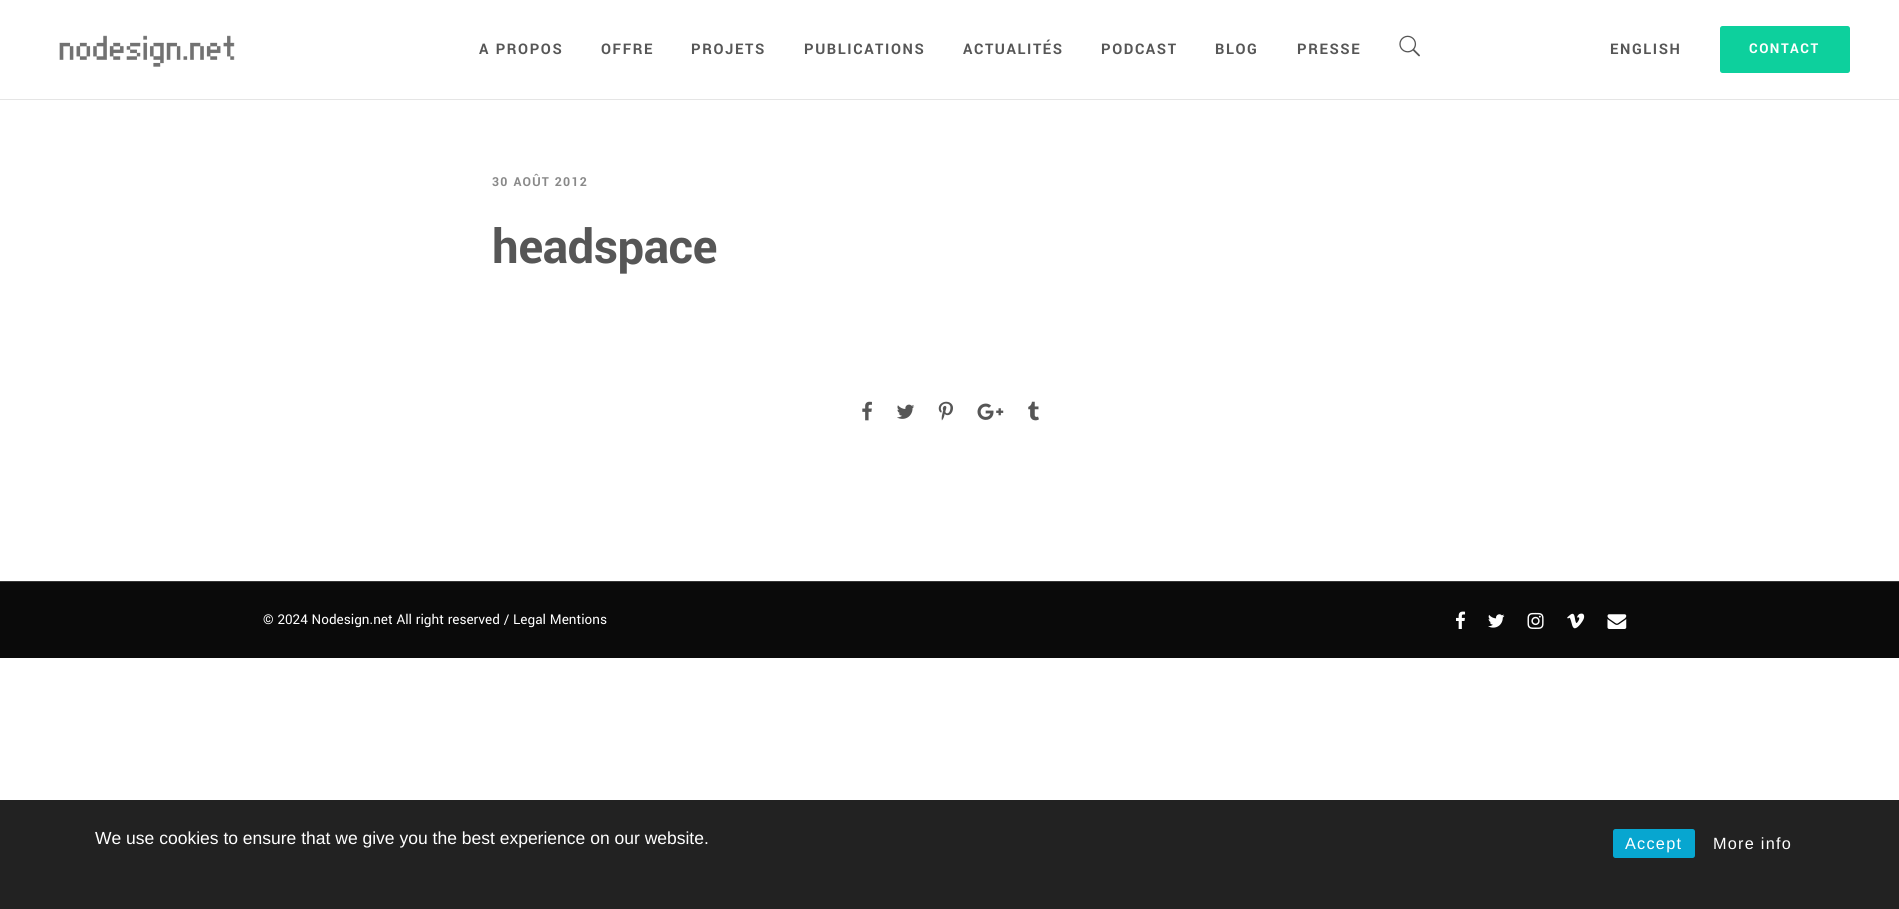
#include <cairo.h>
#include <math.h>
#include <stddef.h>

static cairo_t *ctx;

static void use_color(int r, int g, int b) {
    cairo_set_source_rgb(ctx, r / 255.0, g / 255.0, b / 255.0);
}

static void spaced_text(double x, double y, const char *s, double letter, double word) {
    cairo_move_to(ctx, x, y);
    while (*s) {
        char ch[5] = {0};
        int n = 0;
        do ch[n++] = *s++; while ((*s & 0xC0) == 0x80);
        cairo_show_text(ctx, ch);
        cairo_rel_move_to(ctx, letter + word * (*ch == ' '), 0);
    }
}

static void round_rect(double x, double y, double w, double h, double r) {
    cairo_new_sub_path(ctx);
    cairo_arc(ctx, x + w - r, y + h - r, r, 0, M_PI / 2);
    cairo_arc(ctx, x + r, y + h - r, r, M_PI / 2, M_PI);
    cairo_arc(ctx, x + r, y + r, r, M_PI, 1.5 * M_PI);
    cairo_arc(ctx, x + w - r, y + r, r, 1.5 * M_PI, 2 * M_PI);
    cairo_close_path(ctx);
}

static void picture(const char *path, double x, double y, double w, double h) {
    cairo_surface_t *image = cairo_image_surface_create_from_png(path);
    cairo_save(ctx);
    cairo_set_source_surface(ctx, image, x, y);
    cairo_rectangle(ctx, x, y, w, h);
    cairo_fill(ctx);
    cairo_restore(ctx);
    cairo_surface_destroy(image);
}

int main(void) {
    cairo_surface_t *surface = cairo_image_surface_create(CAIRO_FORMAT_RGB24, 1899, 909);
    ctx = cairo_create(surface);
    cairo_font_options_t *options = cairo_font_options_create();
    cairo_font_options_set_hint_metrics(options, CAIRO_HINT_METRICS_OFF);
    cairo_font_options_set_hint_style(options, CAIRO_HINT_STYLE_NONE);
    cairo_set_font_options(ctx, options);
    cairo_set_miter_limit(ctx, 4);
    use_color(255, 255, 255);
    cairo_paint(ctx);
    use_color(229, 229, 229);
    cairo_rectangle(ctx, 0, 99, 1899, 1);
    cairo_fill(ctx);
    picture("img1.png", 59, 35, 176, 32);
    cairo_select_font_face(ctx, "Yantramanav", CAIRO_FONT_SLANT_NORMAL, CAIRO_FONT_WEIGHT_BOLD);
    cairo_set_font_size(ctx, 16.25);
    use_color(86, 86, 86);
    spaced_text(479, 54, "A PROPOS", 1.6, 0);
    spaced_text(601, 54, "OFFRE", 1.6, 0);
    spaced_text(691, 54, "PROJETS", 1.6, 0);
    spaced_text(804, 54, "PUBLICATIONS", 1.6, 0);
    spaced_text(963, 54, "ACTUALITÉS", 1.6, 0);
    spaced_text(1101, 54, "PODCAST", 1.6, 0);
    spaced_text(1215, 54, "BLOG", 1.6, 0);
    spaced_text(1297, 54, "PRESSE", 1.6, 0);
    picture("img2.png", 1399, 35, 21, 22);
    spaced_text(1610, 54, "ENGLISH", 1.6, 0);
    use_color(13, 208, 157);
    round_rect(1720, 26, 130, 47, 2.5);
    cairo_fill(ctx);
    cairo_set_font_size(ctx, 15);
    use_color(255, 255, 255);
    spaced_text(1749, 53, "CONTACT", 1.5, 0);
    cairo_set_font_size(ctx, 13.75);
    use_color(137, 137, 137);
    spaced_text(492, 186, "30 AOÛT 2012", 1.25, 0);
    cairo_set_font_size(ctx, 52.5);
    use_color(86, 86, 86);
    spaced_text(492, 263, "headspace", -0.5, 0);
    picture("img3.png", 862, 401, 10, 20);
    picture("img4.png", 897, 404, 18, 15);
    picture("img5.png", 938, 401, 15, 20);
    picture("img6.png", 977, 403, 27, 17);
    picture("img7.png", 1028, 401, 11, 20);
    use_color(10, 10, 10);
    cairo_rectangle(ctx, 0, 582, 1899, 76);
    cairo_fill(ctx);
    use_color(54, 54, 54);
    cairo_rectangle(ctx, 0, 581, 1899, 1);
    cairo_fill(ctx);
    cairo_select_font_face(ctx, "Yantramanav", CAIRO_FONT_SLANT_NORMAL, CAIRO_FONT_WEIGHT_NORMAL);
    cairo_set_font_size(ctx, 15);
    use_color(255, 255, 255);
    cairo_move_to(ctx, 263, 624);
    cairo_show_text(ctx, "© 2024 Nodesign.net All right reserved / Legal Mentions");
    picture("img8.png", 1456, 611, 10, 18);
    picture("img9.png", 1488, 614, 17, 14);
    picture("img10.png", 1527, 612, 17, 17);
    picture("img11.png", 1567, 613, 18, 16);
    picture("img12.png", 1607, 614, 20, 15);
    use_color(34, 34, 34);
    cairo_rectangle(ctx, 0, 800, 1899, 109);
    cairo_fill(ctx);
    cairo_select_font_face(ctx, "Liberation Sans", CAIRO_FONT_SLANT_NORMAL, CAIRO_FONT_WEIGHT_NORMAL);
    cairo_set_font_size(ctx, 17.5);
    use_color(255, 255, 255);
    cairo_move_to(ctx, 95, 844);
    cairo_show_text(ctx, "We use cookies to ensure that we give you the best experience on our website.");
    use_color(7, 166, 208);
    round_rect(1613, 829, 82, 29, 2.5);
    cairo_fill(ctx);
    cairo_set_font_size(ctx, 16.25);
    use_color(255, 255, 255);
    spaced_text(1625, 849, "Accept", 1.25, 0);
    spaced_text(1713, 849, "More info", 1.25, 0);
    cairo_surface_write_to_png(surface, "result.png");
    cairo_font_options_destroy(options);
    cairo_destroy(ctx);
    cairo_surface_destroy(surface);
    return 0;
}
